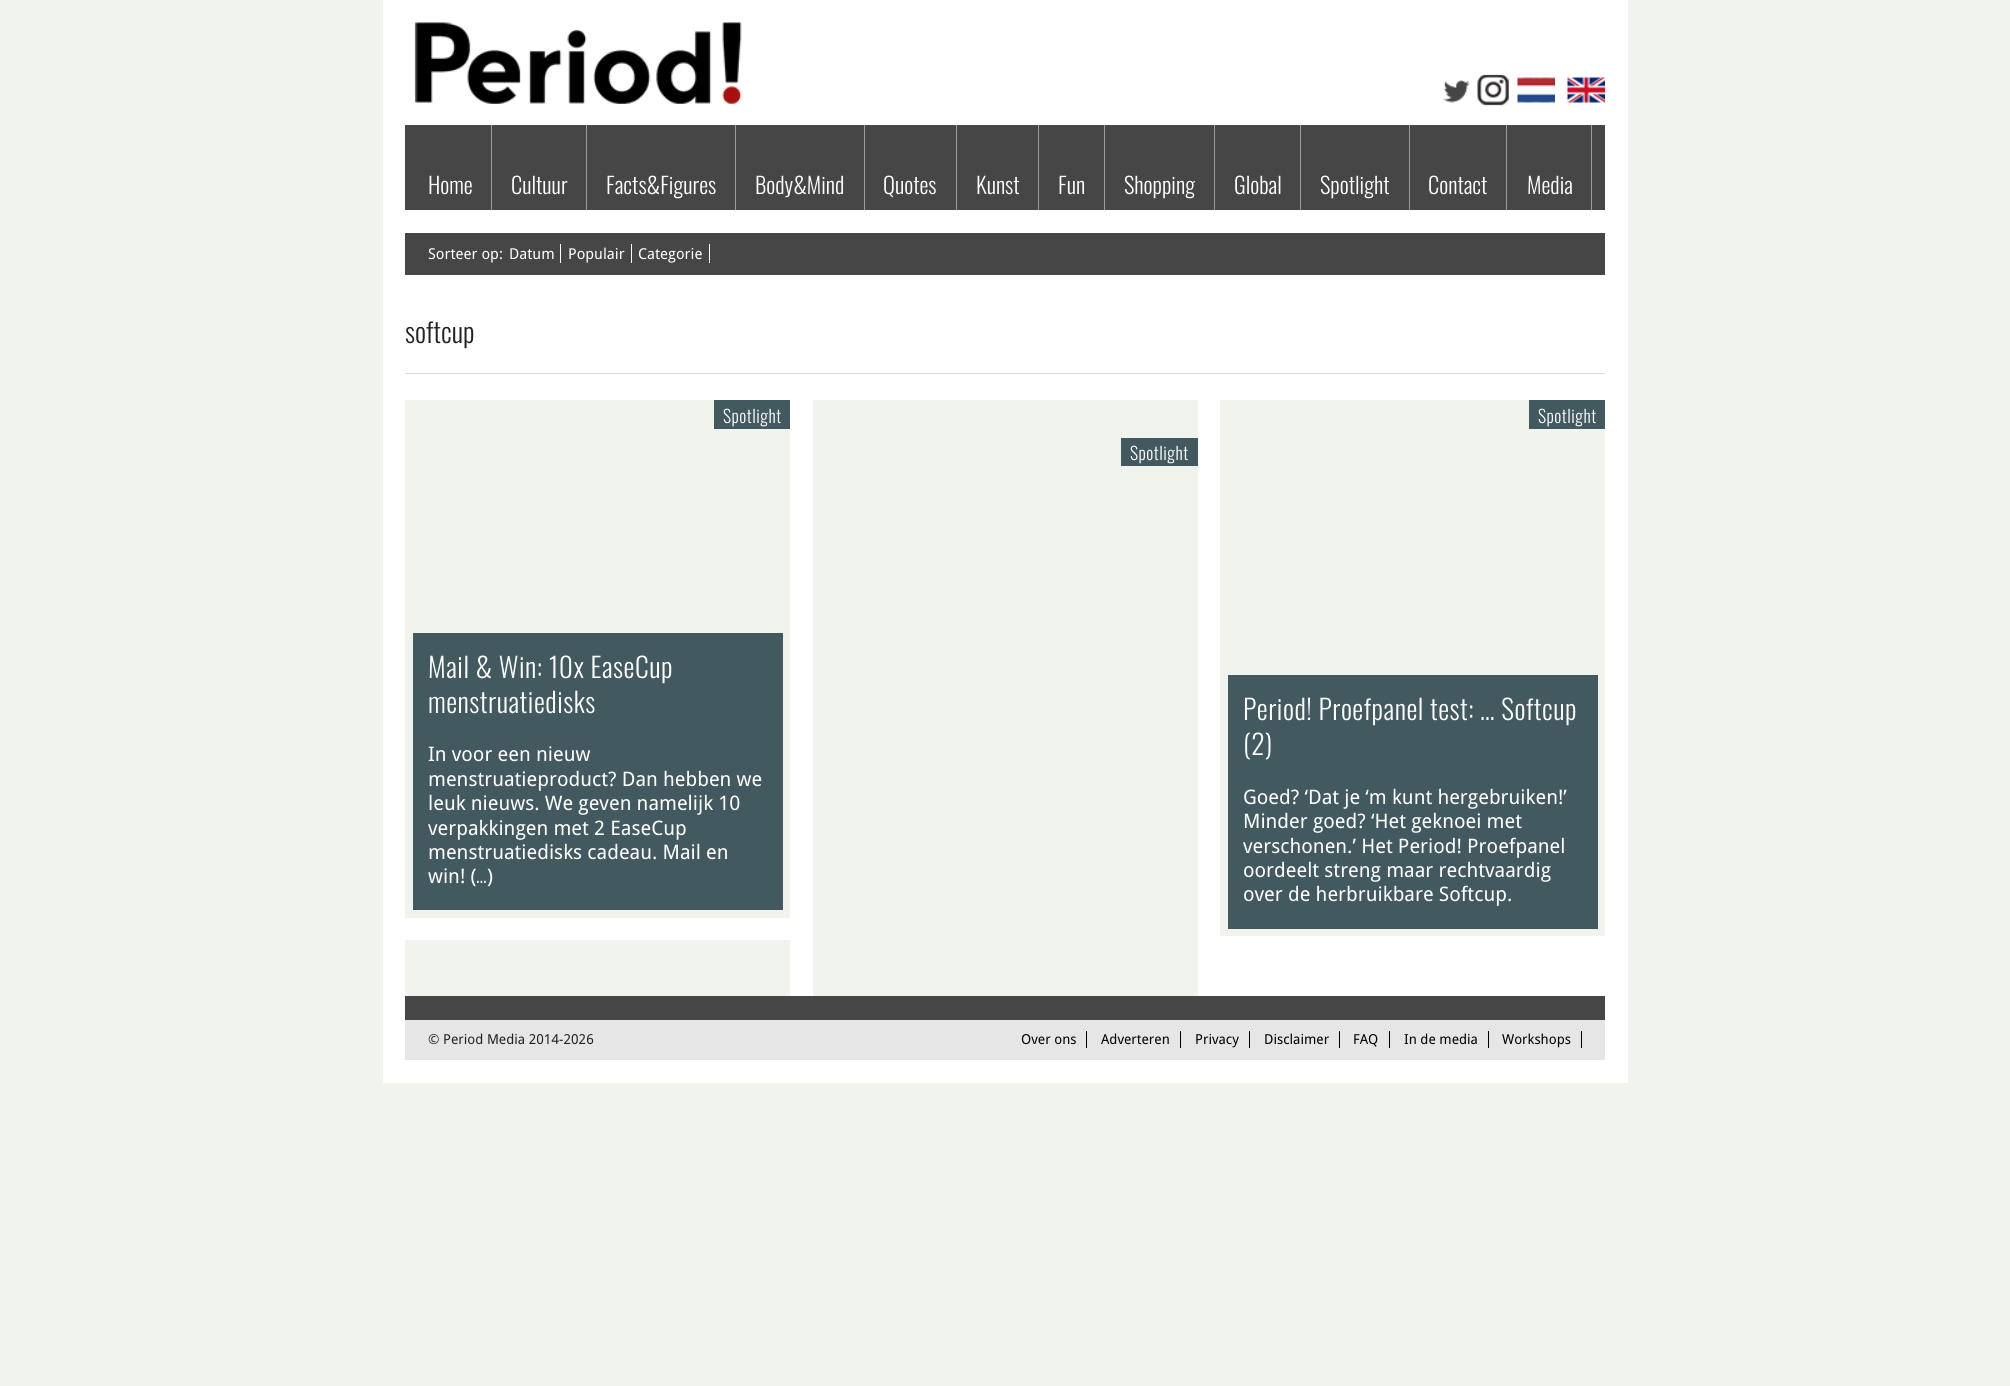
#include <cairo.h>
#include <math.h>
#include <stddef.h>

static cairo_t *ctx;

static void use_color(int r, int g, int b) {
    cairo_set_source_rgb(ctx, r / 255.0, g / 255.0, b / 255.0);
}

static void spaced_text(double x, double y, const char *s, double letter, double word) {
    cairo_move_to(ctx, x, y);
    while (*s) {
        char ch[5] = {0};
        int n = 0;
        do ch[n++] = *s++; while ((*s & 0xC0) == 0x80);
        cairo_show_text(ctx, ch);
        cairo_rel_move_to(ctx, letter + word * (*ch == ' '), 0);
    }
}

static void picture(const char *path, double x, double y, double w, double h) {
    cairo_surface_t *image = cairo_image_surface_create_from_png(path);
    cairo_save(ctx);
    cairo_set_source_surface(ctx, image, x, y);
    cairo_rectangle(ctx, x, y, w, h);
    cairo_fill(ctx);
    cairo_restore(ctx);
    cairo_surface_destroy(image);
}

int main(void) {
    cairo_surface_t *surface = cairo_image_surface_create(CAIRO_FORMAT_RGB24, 2010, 1386);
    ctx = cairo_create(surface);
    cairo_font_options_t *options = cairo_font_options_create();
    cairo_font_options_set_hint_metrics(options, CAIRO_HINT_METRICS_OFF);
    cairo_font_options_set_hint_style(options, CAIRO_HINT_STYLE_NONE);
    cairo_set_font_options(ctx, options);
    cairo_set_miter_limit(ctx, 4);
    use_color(241, 244, 237);
    cairo_paint(ctx);
    use_color(255, 255, 255);
    cairo_rectangle(ctx, 383, 0, 1245, 1083);
    cairo_fill(ctx);
    picture("img1.png", 1443, 80, 27, 23);
    picture("img2.png", 1477, 74, 32, 32);
    picture("img3.png", 1517, 77, 38, 26);
    picture("img4.png", 1567, 77, 38, 26);
    picture("img5.png", 414, 22, 328, 82);
    use_color(70, 70, 70);
    cairo_rectangle(ctx, 405, 125, 1200, 85);
    cairo_fill(ctx);
    use_color(157, 157, 157);
    cairo_rectangle(ctx, 491, 125, 1, 85);
    cairo_fill(ctx);
    cairo_select_font_face(ctx, "Oswald Light", CAIRO_FONT_SLANT_NORMAL, CAIRO_FONT_WEIGHT_NORMAL);
    cairo_set_font_size(ctx, 22.5);
    use_color(255, 255, 255);
    cairo_move_to(ctx, 428, 194);
    cairo_show_text(ctx, "Home");
    use_color(157, 157, 157);
    cairo_rectangle(ctx, 586, 125, 1, 85);
    cairo_fill(ctx);
    use_color(255, 255, 255);
    cairo_move_to(ctx, 511, 194);
    cairo_show_text(ctx, "Cultuur");
    use_color(157, 157, 157);
    cairo_rectangle(ctx, 735, 125, 1, 85);
    cairo_fill(ctx);
    use_color(255, 255, 255);
    cairo_move_to(ctx, 606, 194);
    cairo_show_text(ctx, "Facts&Figures");
    use_color(157, 157, 157);
    cairo_rectangle(ctx, 864, 125, 1, 85);
    cairo_fill(ctx);
    use_color(255, 255, 255);
    cairo_move_to(ctx, 755, 194);
    cairo_show_text(ctx, "Body&Mind");
    use_color(157, 157, 157);
    cairo_rectangle(ctx, 956, 125, 1, 85);
    cairo_fill(ctx);
    use_color(255, 255, 255);
    cairo_move_to(ctx, 883, 194);
    cairo_show_text(ctx, "Quotes");
    use_color(157, 157, 157);
    cairo_rectangle(ctx, 1038, 125, 1, 85);
    cairo_fill(ctx);
    use_color(255, 255, 255);
    cairo_move_to(ctx, 976, 194);
    cairo_show_text(ctx, "Kunst");
    use_color(157, 157, 157);
    cairo_rectangle(ctx, 1104, 125, 1, 85);
    cairo_fill(ctx);
    use_color(255, 255, 255);
    cairo_move_to(ctx, 1058, 194);
    cairo_show_text(ctx, "Fun");
    use_color(157, 157, 157);
    cairo_rectangle(ctx, 1214, 125, 1, 85);
    cairo_fill(ctx);
    use_color(255, 255, 255);
    cairo_move_to(ctx, 1124, 194);
    cairo_show_text(ctx, "Shopping");
    use_color(157, 157, 157);
    cairo_rectangle(ctx, 1300, 125, 1, 85);
    cairo_fill(ctx);
    use_color(255, 255, 255);
    cairo_move_to(ctx, 1234, 194);
    cairo_show_text(ctx, "Global");
    use_color(157, 157, 157);
    cairo_rectangle(ctx, 1409, 125, 1, 85);
    cairo_fill(ctx);
    use_color(255, 255, 255);
    cairo_move_to(ctx, 1320, 194);
    cairo_show_text(ctx, "Spotlight");
    use_color(157, 157, 157);
    cairo_rectangle(ctx, 1506, 125, 1, 85);
    cairo_fill(ctx);
    use_color(255, 255, 255);
    cairo_move_to(ctx, 1428, 194);
    cairo_show_text(ctx, "Contact");
    use_color(157, 157, 157);
    cairo_rectangle(ctx, 1591, 125, 1, 85);
    cairo_fill(ctx);
    use_color(255, 255, 255);
    cairo_move_to(ctx, 1527, 194);
    cairo_show_text(ctx, "Media");
    use_color(70, 70, 70);
    cairo_rectangle(ctx, 405, 233, 1200, 42);
    cairo_fill(ctx);
    cairo_select_font_face(ctx, "Droid Sans", CAIRO_FONT_SLANT_NORMAL, CAIRO_FONT_WEIGHT_NORMAL);
    cairo_set_font_size(ctx, 15);
    use_color(255, 255, 255);
    cairo_move_to(ctx, 428, 259);
    cairo_show_text(ctx, "Sorteer op:");
    cairo_rectangle(ctx, 560, 244, 1, 19);
    cairo_fill(ctx);
    cairo_move_to(ctx, 509, 259);
    cairo_show_text(ctx, "Datum");
    cairo_rectangle(ctx, 631, 244, 1, 19);
    cairo_fill(ctx);
    cairo_move_to(ctx, 568, 259);
    cairo_show_text(ctx, "Populair");
    cairo_rectangle(ctx, 709, 244, 1, 19);
    cairo_fill(ctx);
    cairo_move_to(ctx, 638, 259);
    cairo_show_text(ctx, "Categorie");
    cairo_select_font_face(ctx, "Oswald Light", CAIRO_FONT_SLANT_NORMAL, CAIRO_FONT_WEIGHT_NORMAL);
    cairo_set_font_size(ctx, 27.5);
    use_color(34, 34, 34);
    cairo_move_to(ctx, 405, 343);
    cairo_show_text(ctx, "softcup");
    use_color(221, 221, 221);
    cairo_rectangle(ctx, 405, 373, 1200, 1);
    cairo_fill(ctx);
    use_color(241, 244, 237);
    cairo_rectangle(ctx, 405, 400, 385, 518);
    cairo_fill(ctx);
    use_color(67, 89, 96);
    cairo_rectangle(ctx, 714, 400, 76, 29);
    cairo_fill(ctx);
    cairo_set_font_size(ctx, 17.5);
    use_color(255, 255, 255);
    spaced_text(723, 423, "Spotlight", 0.5, 0);
    use_color(67, 89, 96);
    cairo_rectangle(ctx, 413, 633, 370, 277);
    cairo_fill(ctx);
    cairo_set_font_size(ctx, 27.5);
    use_color(255, 255, 255);
    spaced_text(428, 678, "Mail & Win: 10x EaseCup", 0.5, 0);
    spaced_text(428, 713, "menstruatiedisks", 0.5, 0);
    cairo_select_font_face(ctx, "Droid Sans", CAIRO_FONT_SLANT_NORMAL, CAIRO_FONT_WEIGHT_NORMAL);
    cairo_set_font_size(ctx, 20);
    cairo_move_to(ctx, 428, 761);
    cairo_show_text(ctx, "In voor een nieuw");
    cairo_move_to(ctx, 428, 786);
    cairo_show_text(ctx, "menstruatieproduct? Dan hebben we");
    cairo_move_to(ctx, 428, 810);
    cairo_show_text(ctx, "leuk nieuws. We geven namelijk 10");
    cairo_move_to(ctx, 428, 835);
    cairo_show_text(ctx, "verpakkingen met 2 EaseCup");
    cairo_move_to(ctx, 428, 859);
    cairo_show_text(ctx, "menstruatiedisks cadeau. Mail en");
    cairo_move_to(ctx, 428, 883);
    cairo_show_text(ctx, "win! (");
    cairo_select_font_face(ctx, "Oswald Light", CAIRO_FONT_SLANT_NORMAL, CAIRO_FONT_WEIGHT_NORMAL);
    cairo_move_to(ctx, 476, 883);
    cairo_show_text(ctx, "…");
    cairo_select_font_face(ctx, "Droid Sans", CAIRO_FONT_SLANT_NORMAL, CAIRO_FONT_WEIGHT_NORMAL);
    cairo_move_to(ctx, 487, 883);
    cairo_show_text(ctx, ")");
    use_color(241, 244, 237);
    cairo_rectangle(ctx, 813, 400, 385, 596);
    cairo_fill(ctx);
    cairo_rectangle(ctx, 1220, 400, 385, 536);
    cairo_fill(ctx);
    use_color(67, 89, 96);
    cairo_rectangle(ctx, 1529, 400, 76, 29);
    cairo_fill(ctx);
    cairo_select_font_face(ctx, "Oswald Light", CAIRO_FONT_SLANT_NORMAL, CAIRO_FONT_WEIGHT_NORMAL);
    cairo_set_font_size(ctx, 17.5);
    use_color(255, 255, 255);
    spaced_text(1538, 423, "Spotlight", 0.5, 0);
    use_color(67, 89, 96);
    cairo_rectangle(ctx, 1228, 675, 370, 254);
    cairo_fill(ctx);
    cairo_set_font_size(ctx, 27.5);
    use_color(255, 255, 255);
    spaced_text(1243, 720, "Period! Proefpanel test: … Softcup", 0.5, 0);
    spaced_text(1243, 755, "(2)", 0.5, 0);
    cairo_select_font_face(ctx, "Droid Sans", CAIRO_FONT_SLANT_NORMAL, CAIRO_FONT_WEIGHT_NORMAL);
    cairo_set_font_size(ctx, 20);
    cairo_move_to(ctx, 1243, 804);
    cairo_show_text(ctx, "Goed? ‘Dat je ‘m kunt hergebruiken!’");
    cairo_move_to(ctx, 1243, 828);
    cairo_show_text(ctx, "Minder goed? ‘Het geknoei met");
    cairo_move_to(ctx, 1243, 853);
    cairo_show_text(ctx, "verschonen.’ Het Period! Proefpanel");
    cairo_move_to(ctx, 1243, 877);
    cairo_show_text(ctx, "oordeelt streng maar rechtvaardig");
    cairo_move_to(ctx, 1243, 901);
    cairo_show_text(ctx, "over de herbruikbare Softcup.");
    use_color(67, 89, 96);
    cairo_rectangle(ctx, 1121, 438, 77, 28);
    cairo_fill(ctx);
    cairo_select_font_face(ctx, "Oswald Light", CAIRO_FONT_SLANT_NORMAL, CAIRO_FONT_WEIGHT_NORMAL);
    cairo_set_font_size(ctx, 17.5);
    use_color(255, 255, 255);
    spaced_text(1130, 460, "Spotlight", 0.5, 0);
    use_color(241, 244, 237);
    cairo_rectangle(ctx, 405, 940, 385, 56);
    cairo_fill(ctx);
    use_color(70, 70, 70);
    cairo_rectangle(ctx, 405, 996, 1200, 24);
    cairo_fill(ctx);
    use_color(230, 230, 230);
    cairo_rectangle(ctx, 405, 1020, 1200, 40);
    cairo_fill(ctx);
    cairo_select_font_face(ctx, "Droid Sans", CAIRO_FONT_SLANT_NORMAL, CAIRO_FONT_WEIGHT_NORMAL);
    cairo_set_font_size(ctx, 13.75);
    use_color(34, 34, 34);
    cairo_move_to(ctx, 428, 1044);
    cairo_show_text(ctx, "© Period Media 2014-2026");
    use_color(0, 0, 0);
    cairo_move_to(ctx, 1021, 1044);
    cairo_show_text(ctx, "Over ons");
    cairo_rectangle(ctx, 1086, 1031, 1, 17);
    cairo_fill(ctx);
    cairo_move_to(ctx, 1101, 1044);
    cairo_show_text(ctx, "Adverteren");
    cairo_rectangle(ctx, 1180, 1031, 1, 17);
    cairo_fill(ctx);
    cairo_move_to(ctx, 1195, 1044);
    cairo_show_text(ctx, "Privacy");
    cairo_rectangle(ctx, 1249, 1031, 1, 17);
    cairo_fill(ctx);
    cairo_move_to(ctx, 1264, 1044);
    cairo_show_text(ctx, "Disclaimer");
    cairo_rectangle(ctx, 1339, 1031, 1, 17);
    cairo_fill(ctx);
    cairo_move_to(ctx, 1353, 1044);
    cairo_show_text(ctx, "FAQ");
    cairo_rectangle(ctx, 1389, 1031, 1, 17);
    cairo_fill(ctx);
    cairo_move_to(ctx, 1404, 1044);
    cairo_show_text(ctx, "In de media");
    cairo_rectangle(ctx, 1488, 1031, 1, 17);
    cairo_fill(ctx);
    cairo_move_to(ctx, 1502, 1044);
    cairo_show_text(ctx, "Workshops");
    cairo_rectangle(ctx, 1581, 1031, 1, 17);
    cairo_fill(ctx);
    cairo_surface_write_to_png(surface, "result.png");
    cairo_font_options_destroy(options);
    cairo_destroy(ctx);
    cairo_surface_destroy(surface);
    return 0;
}
